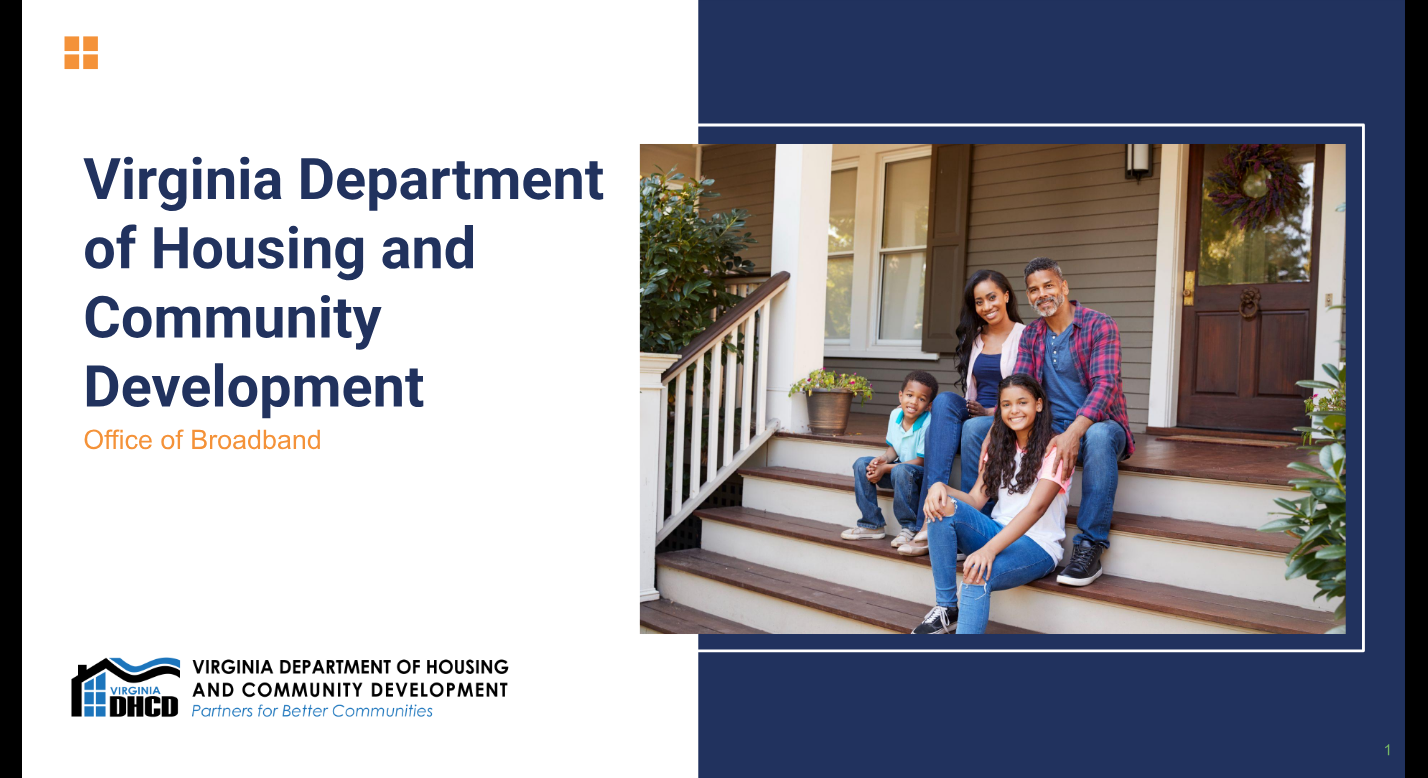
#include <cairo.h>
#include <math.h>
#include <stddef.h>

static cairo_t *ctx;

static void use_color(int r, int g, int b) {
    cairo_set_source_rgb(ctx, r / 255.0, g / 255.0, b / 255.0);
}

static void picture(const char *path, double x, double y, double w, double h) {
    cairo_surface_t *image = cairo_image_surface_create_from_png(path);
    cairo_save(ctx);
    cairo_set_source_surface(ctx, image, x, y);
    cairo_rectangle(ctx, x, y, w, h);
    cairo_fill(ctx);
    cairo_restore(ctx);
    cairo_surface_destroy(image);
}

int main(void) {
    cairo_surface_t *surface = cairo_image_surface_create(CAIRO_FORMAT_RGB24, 1428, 778);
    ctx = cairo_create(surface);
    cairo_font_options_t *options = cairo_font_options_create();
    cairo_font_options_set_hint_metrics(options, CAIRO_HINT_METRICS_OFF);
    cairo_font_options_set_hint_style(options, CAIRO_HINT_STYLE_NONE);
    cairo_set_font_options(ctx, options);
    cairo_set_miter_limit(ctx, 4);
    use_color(0, 0, 0);
    cairo_paint(ctx);
    picture("img1.png", 22, 0, 1383, 778);
    cairo_surface_write_to_png(surface, "result.png");
    cairo_font_options_destroy(options);
    cairo_destroy(ctx);
    cairo_surface_destroy(surface);
    return 0;
}
